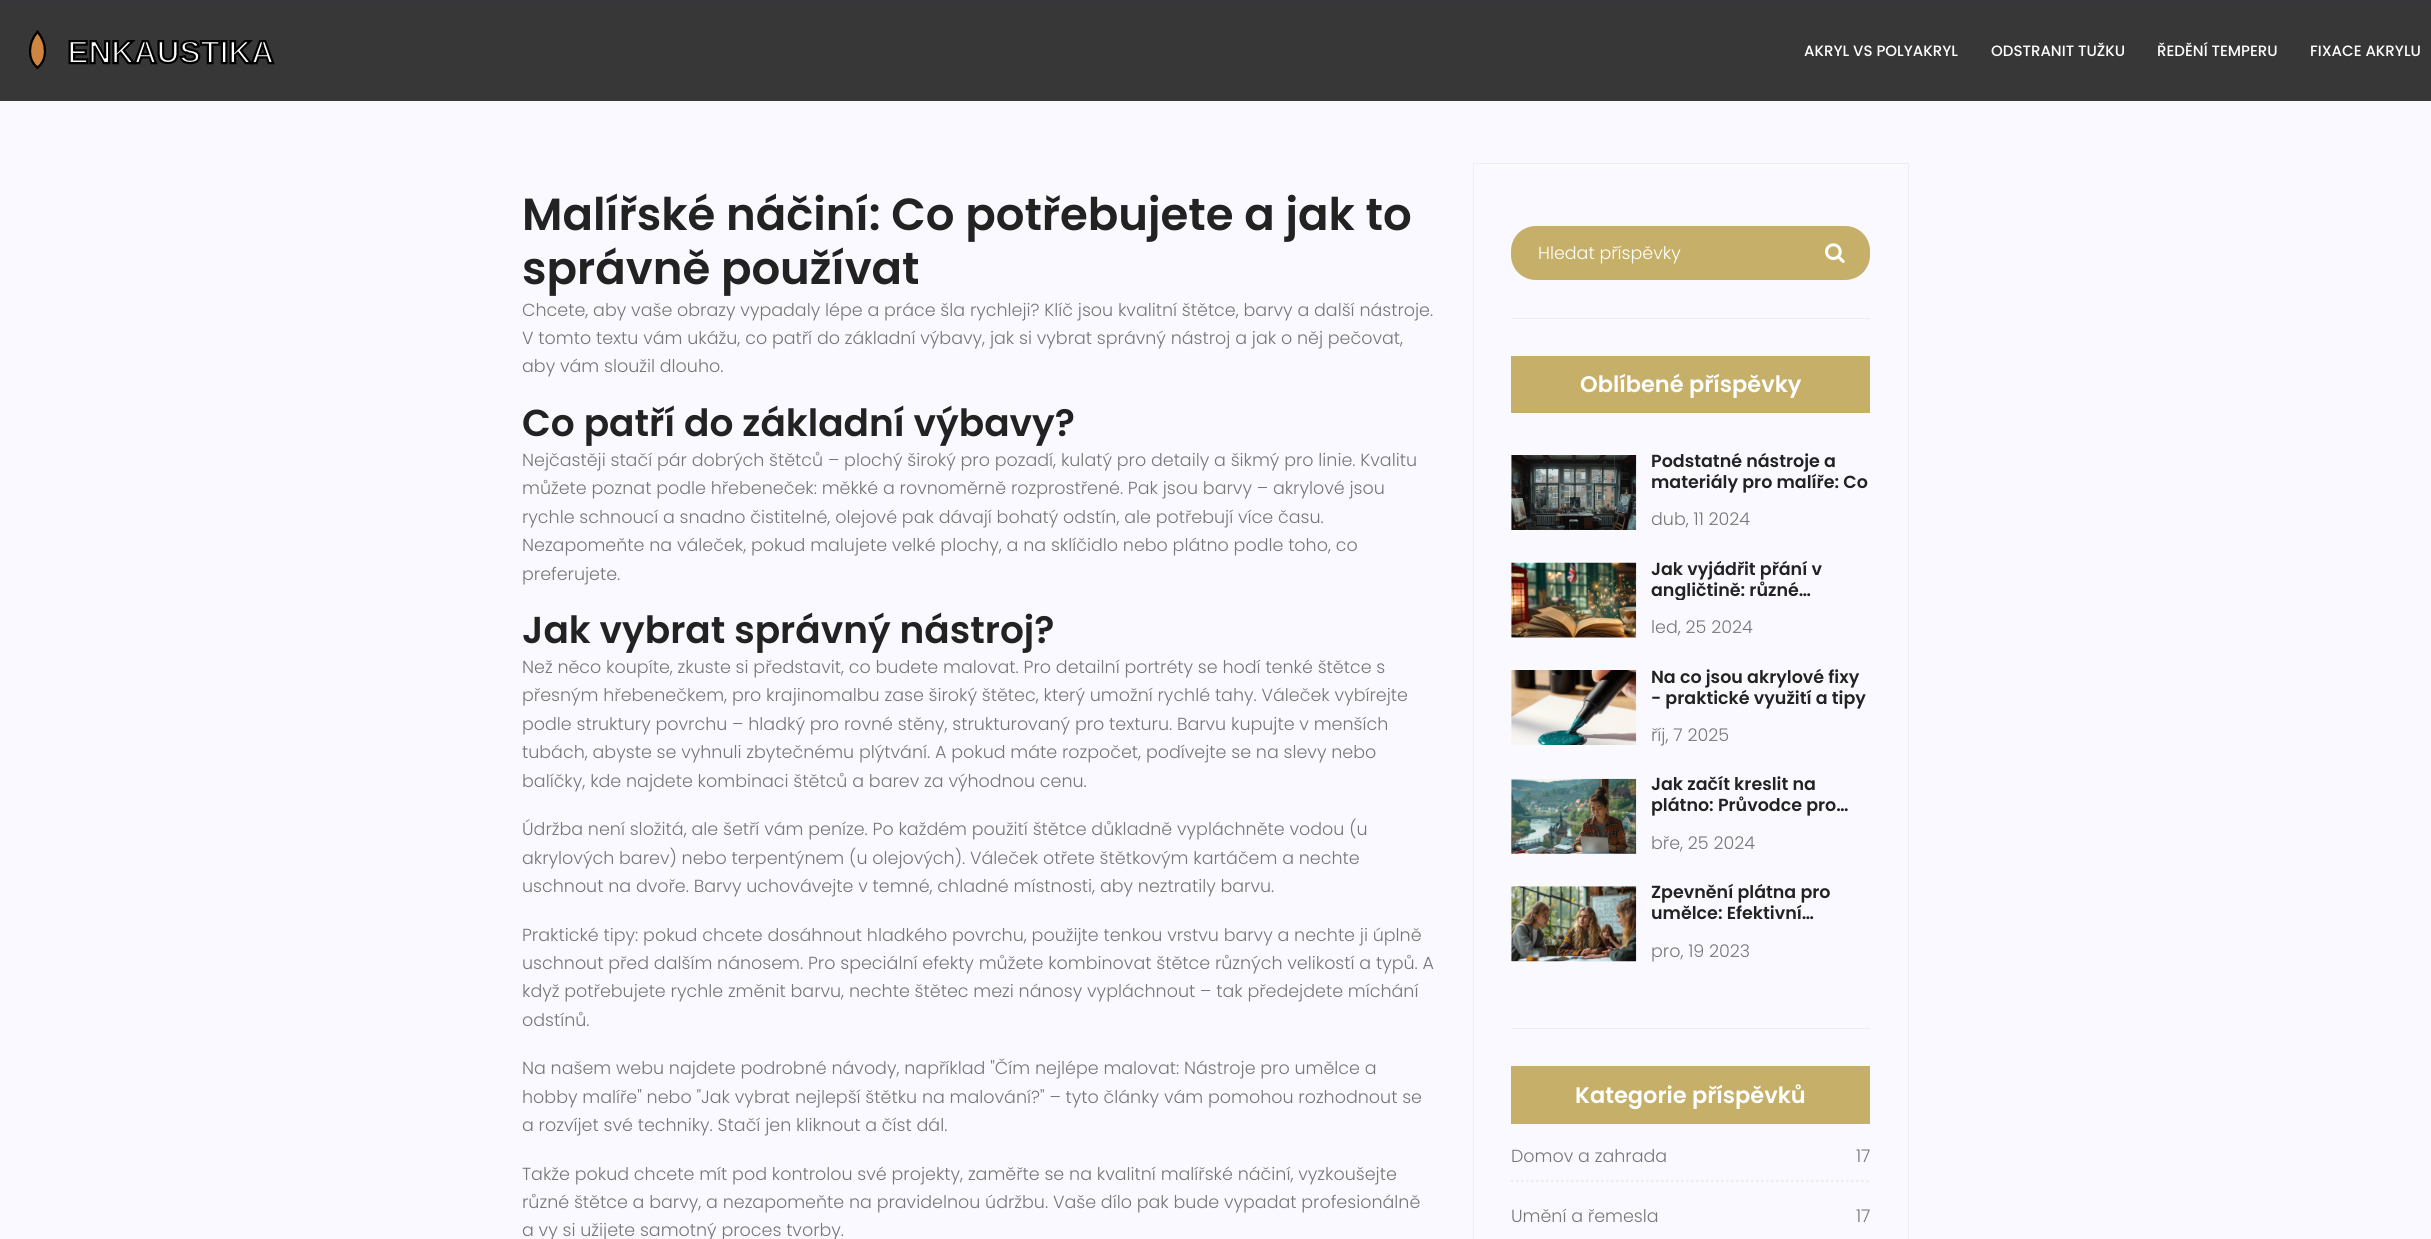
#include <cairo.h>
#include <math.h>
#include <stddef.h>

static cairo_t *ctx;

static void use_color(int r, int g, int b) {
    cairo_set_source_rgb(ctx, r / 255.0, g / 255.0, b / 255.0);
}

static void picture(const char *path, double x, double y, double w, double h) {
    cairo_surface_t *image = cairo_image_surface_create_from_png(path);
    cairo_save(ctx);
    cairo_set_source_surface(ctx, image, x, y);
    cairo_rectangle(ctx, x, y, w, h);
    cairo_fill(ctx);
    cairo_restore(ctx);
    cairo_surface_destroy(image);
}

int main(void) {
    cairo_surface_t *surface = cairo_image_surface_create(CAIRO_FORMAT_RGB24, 2431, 1239);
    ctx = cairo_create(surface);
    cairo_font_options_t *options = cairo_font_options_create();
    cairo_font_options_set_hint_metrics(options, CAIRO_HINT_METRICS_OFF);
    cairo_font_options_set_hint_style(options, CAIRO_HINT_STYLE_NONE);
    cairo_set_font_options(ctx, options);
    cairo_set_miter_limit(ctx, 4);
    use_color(249, 249, 255);
    cairo_paint(ctx);
    use_color(55, 55, 56);
    cairo_rectangle(ctx, 0, 1, 2431, 100);
    cairo_fill(ctx);
    use_color(57, 53, 62);
    cairo_rectangle(ctx, 0, 0, 2431, 1);
    cairo_fill(ctx);
    picture("img1.png", 28, 30, 247, 40);
    cairo_select_font_face(ctx, "Poppins Medium", CAIRO_FONT_SLANT_NORMAL, CAIRO_FONT_WEIGHT_NORMAL);
    cairo_set_font_size(ctx, 15);
    use_color(255, 255, 255);
    cairo_move_to(ctx, 1804, 56);
    cairo_show_text(ctx, "AKRYL VS POLYAKRYL");
    cairo_move_to(ctx, 1991, 56);
    cairo_show_text(ctx, "ODSTRANIT TUŽKU");
    cairo_move_to(ctx, 2157, 56);
    cairo_show_text(ctx, "ŘEDĚNÍ TEMPERU");
    cairo_move_to(ctx, 2310, 56);
    cairo_show_text(ctx, "FIXACE AKRYLU");
    cairo_select_font_face(ctx, "Poppins SemiBold", CAIRO_FONT_SLANT_NORMAL, CAIRO_FONT_WEIGHT_NORMAL);
    cairo_set_font_size(ctx, 45);
    use_color(34, 34, 34);
    cairo_move_to(ctx, 522, 230);
    cairo_show_text(ctx, "Malířské náčiní: Co potřebujete a jak to");
    cairo_move_to(ctx, 522, 284);
    cairo_show_text(ctx, "správně používat");
    cairo_select_font_face(ctx, "Poppins Light", CAIRO_FONT_SLANT_NORMAL, CAIRO_FONT_WEIGHT_NORMAL);
    cairo_set_font_size(ctx, 17.5);
    use_color(119, 119, 119);
    cairo_move_to(ctx, 522, 316);
    cairo_show_text(ctx, "Chcete, aby vaše obrazy vypadaly lépe a práce šla rychleji? Klíč jsou kvalitní štětce, barvy a další nástroje.");
    cairo_move_to(ctx, 522, 344);
    cairo_show_text(ctx, "V tomto textu vám ukážu, co patří do základní výbavy, jak si vybrat správný nástroj a jak o něj pečovat,");
    cairo_move_to(ctx, 522, 372);
    cairo_show_text(ctx, "aby vám sloužil dlouho.");
    cairo_select_font_face(ctx, "Poppins SemiBold", CAIRO_FONT_SLANT_NORMAL, CAIRO_FONT_WEIGHT_NORMAL);
    cairo_set_font_size(ctx, 37.5);
    use_color(34, 34, 34);
    cairo_move_to(ctx, 522, 436);
    cairo_show_text(ctx, "Co patří do základní výbavy?");
    cairo_select_font_face(ctx, "Poppins Light", CAIRO_FONT_SLANT_NORMAL, CAIRO_FONT_WEIGHT_NORMAL);
    cairo_set_font_size(ctx, 17.5);
    use_color(119, 119, 119);
    cairo_move_to(ctx, 522, 466);
    cairo_show_text(ctx, "Nejčastěji stačí pár dobrých štětců – plochý široký pro pozadí, kulatý pro detaily a šikmý pro linie. Kvalitu");
    cairo_move_to(ctx, 522, 494);
    cairo_show_text(ctx, "můžete poznat podle hřebeneček: měkké a rovnoměrně rozprostřené. Pak jsou barvy – akrylové jsou");
    cairo_move_to(ctx, 522, 523);
    cairo_show_text(ctx, "rychle schnoucí a snadno čistitelné, olejové pak dávají bohatý odstín, ale potřebují více času.");
    cairo_move_to(ctx, 522, 551);
    cairo_show_text(ctx, "Nezapomeňte na váleček, pokud malujete velké plochy, a na sklíčidlo nebo plátno podle toho, co");
    cairo_move_to(ctx, 522, 580);
    cairo_show_text(ctx, "preferujete.");
    cairo_select_font_face(ctx, "Poppins SemiBold", CAIRO_FONT_SLANT_NORMAL, CAIRO_FONT_WEIGHT_NORMAL);
    cairo_set_font_size(ctx, 37.5);
    use_color(34, 34, 34);
    cairo_move_to(ctx, 522, 643);
    cairo_show_text(ctx, "Jak vybrat správný nástroj?");
    cairo_select_font_face(ctx, "Poppins Light", CAIRO_FONT_SLANT_NORMAL, CAIRO_FONT_WEIGHT_NORMAL);
    cairo_set_font_size(ctx, 17.5);
    use_color(119, 119, 119);
    cairo_move_to(ctx, 522, 673);
    cairo_show_text(ctx, "Než něco koupíte, zkuste si představit, co budete malovat. Pro detailní portréty se hodí tenké štětce s");
    cairo_move_to(ctx, 522, 701);
    cairo_show_text(ctx, "přesným hřebenečkem, pro krajinomalbu zase široký štětec, který umožní rychlé tahy. Váleček vybírejte");
    cairo_move_to(ctx, 522, 730);
    cairo_show_text(ctx, "podle struktury povrchu – hladký pro rovné stěny, strukturovaný pro texturu. Barvu kupujte v menších");
    cairo_move_to(ctx, 522, 758);
    cairo_show_text(ctx, "tubách, abyste se vyhnuli zbytečnému plýtvání. A pokud máte rozpočet, podívejte se na slevy nebo");
    cairo_move_to(ctx, 522, 787);
    cairo_show_text(ctx, "balíčky, kde najdete kombinaci štětců a barev za výhodnou cenu.");
    cairo_move_to(ctx, 522, 835);
    cairo_show_text(ctx, "Údržba není složitá, ale šetří vám peníze. Po každém použití štětce důkladně vypláchněte vodou (u");
    cairo_move_to(ctx, 522, 864);
    cairo_show_text(ctx, "akrylových barev) nebo terpentýnem (u olejových). Váleček otřete štětkovým kartáčem a nechte");
    cairo_move_to(ctx, 522, 892);
    cairo_show_text(ctx, "uschnout na dvoře. Barvy uchovávejte v temné, chladné místnosti, aby neztratily barvu.");
    cairo_move_to(ctx, 522, 941);
    cairo_show_text(ctx, "Praktické tipy: pokud chcete dosáhnout hladkého povrchu, použijte tenkou vrstvu barvy a nechte ji úplně");
    cairo_move_to(ctx, 522, 969);
    cairo_show_text(ctx, "uschnout před dalším nánosem. Pro speciální efekty můžete kombinovat štětce různých velikostí a typů. A");
    cairo_move_to(ctx, 522, 997);
    cairo_show_text(ctx, "když potřebujete rychle změnit barvu, nechte štětec mezi nánosy vypláchnout – tak předejdete míchání");
    cairo_move_to(ctx, 522, 1026);
    cairo_show_text(ctx, "odstínů.");
    cairo_move_to(ctx, 522, 1074);
    cairo_show_text(ctx, "Na našem webu najdete podrobné návody, například \"Čím nejlépe malovat: Nástroje pro umělce a");
    cairo_move_to(ctx, 522, 1103);
    cairo_show_text(ctx, "hobby malíře\" nebo \"Jak vybrat nejlepší štětku na malování?\" – tyto články vám pomohou rozhodnout se");
    cairo_move_to(ctx, 522, 1131);
    cairo_show_text(ctx, "a rozvíjet své techniky. Stačí jen kliknout a číst dál.");
    cairo_move_to(ctx, 522, 1180);
    cairo_show_text(ctx, "Takže pokud chcete mít pod kontrolou své projekty, zaměřte se na kvalitní malířské náčiní, vyzkoušejte");
    cairo_move_to(ctx, 522, 1208);
    cairo_show_text(ctx, "různé štětce a barvy, a nezapomeňte na pravidelnou údržbu. Vaše dílo pak bude vypadat profesionálně");
    cairo_move_to(ctx, 522, 1236);
    cairo_show_text(ctx, "a vy si užijete samotný proces tvorby.");
    cairo_rectangle(ctx, 1473.5, 163.5, 435, 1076);
    use_color(238, 238, 238);
    cairo_set_line_width(ctx, 1);
    cairo_stroke(ctx);
    cairo_rectangle(ctx, 1511, 318, 359, 1);
    cairo_fill(ctx);
    use_color(198, 176, 105);
    cairo_new_path(ctx);
    cairo_move_to(ctx, 1536, 226);
    cairo_line_to(ctx, 1799, 226);
    cairo_line_to(ctx, 1799, 280);
    cairo_line_to(ctx, 1536, 280);
    cairo_curve_to(ctx, 1522, 280, 1511, 269, 1511, 255);
    cairo_line_to(ctx, 1511, 251);
    cairo_curve_to(ctx, 1511, 237, 1522, 226, 1536, 226);
    cairo_close_path(ctx);
    cairo_fill(ctx);
    use_color(255, 255, 255);
    cairo_move_to(ctx, 1538, 259);
    cairo_show_text(ctx, "Hledat příspěvky");
    use_color(198, 176, 105);
    cairo_new_path(ctx);
    cairo_move_to(ctx, 1799, 226);
    cairo_line_to(ctx, 1845, 226);
    cairo_curve_to(ctx, 1859, 226, 1870, 237, 1870, 251);
    cairo_line_to(ctx, 1870, 255);
    cairo_curve_to(ctx, 1870, 269, 1859, 280, 1845, 280);
    cairo_line_to(ctx, 1799, 280);
    cairo_close_path(ctx);
    cairo_fill(ctx);
    picture("img2.png", 1825, 243, 20, 20);
    use_color(238, 238, 238);
    cairo_rectangle(ctx, 1511, 1028, 359, 1);
    cairo_fill(ctx);
    use_color(198, 176, 105);
    cairo_rectangle(ctx, 1511, 356, 359, 57);
    cairo_fill(ctx);
    cairo_select_font_face(ctx, "Poppins SemiBold", CAIRO_FONT_SLANT_NORMAL, CAIRO_FONT_WEIGHT_NORMAL);
    cairo_set_font_size(ctx, 22.5);
    use_color(255, 255, 255);
    cairo_move_to(ctx, 1580, 392);
    cairo_show_text(ctx, "Oblíbené příspěvky");
    picture("img3.png", 1511, 455, 126, 75);
    cairo_set_font_size(ctx, 17.5);
    use_color(34, 34, 34);
    cairo_move_to(ctx, 1651, 467);
    cairo_show_text(ctx, "Podstatné nástroje a");
    cairo_move_to(ctx, 1651, 488);
    cairo_show_text(ctx, "materiály pro malíře: Co");
    cairo_select_font_face(ctx, "Poppins Light", CAIRO_FONT_SLANT_NORMAL, CAIRO_FONT_WEIGHT_NORMAL);
    use_color(119, 119, 119);
    cairo_move_to(ctx, 1651, 525);
    cairo_show_text(ctx, "dub, 11 2024");
    picture("img4.png", 1511, 562, 126, 76);
    cairo_select_font_face(ctx, "Poppins SemiBold", CAIRO_FONT_SLANT_NORMAL, CAIRO_FONT_WEIGHT_NORMAL);
    use_color(34, 34, 34);
    cairo_move_to(ctx, 1651, 575);
    cairo_show_text(ctx, "Jak vyjádřit přání v");
    cairo_save(ctx);
    cairo_rectangle(ctx, 1651, 559, 219, 41);
    cairo_clip(ctx);
    cairo_move_to(ctx, 1651, 596);
    cairo_show_text(ctx, "angličtině: různé…");
    cairo_restore(ctx);
    cairo_select_font_face(ctx, "Poppins Light", CAIRO_FONT_SLANT_NORMAL, CAIRO_FONT_WEIGHT_NORMAL);
    use_color(119, 119, 119);
    cairo_move_to(ctx, 1651, 633);
    cairo_show_text(ctx, "led, 25 2024");
    picture("img5.png", 1511, 670, 126, 75);
    cairo_select_font_face(ctx, "Poppins SemiBold", CAIRO_FONT_SLANT_NORMAL, CAIRO_FONT_WEIGHT_NORMAL);
    use_color(34, 34, 34);
    cairo_move_to(ctx, 1651, 683);
    cairo_show_text(ctx, "Na co jsou akrylové fixy");
    cairo_move_to(ctx, 1651, 704);
    cairo_show_text(ctx, "- praktické využití a tipy");
    cairo_select_font_face(ctx, "Poppins Light", CAIRO_FONT_SLANT_NORMAL, CAIRO_FONT_WEIGHT_NORMAL);
    use_color(119, 119, 119);
    cairo_move_to(ctx, 1651, 741);
    cairo_show_text(ctx, "říj, 7 2025");
    picture("img6.png", 1511, 778, 126, 76);
    cairo_select_font_face(ctx, "Poppins SemiBold", CAIRO_FONT_SLANT_NORMAL, CAIRO_FONT_WEIGHT_NORMAL);
    use_color(34, 34, 34);
    cairo_move_to(ctx, 1651, 790);
    cairo_show_text(ctx, "Jak začít kreslit na");
    cairo_move_to(ctx, 1651, 811);
    cairo_show_text(ctx, "plátno: Průvodce pro…");
    cairo_select_font_face(ctx, "Poppins Light", CAIRO_FONT_SLANT_NORMAL, CAIRO_FONT_WEIGHT_NORMAL);
    use_color(119, 119, 119);
    cairo_move_to(ctx, 1651, 849);
    cairo_show_text(ctx, "bře, 25 2024");
    picture("img7.png", 1511, 886, 126, 76);
    cairo_select_font_face(ctx, "Poppins SemiBold", CAIRO_FONT_SLANT_NORMAL, CAIRO_FONT_WEIGHT_NORMAL);
    use_color(34, 34, 34);
    cairo_move_to(ctx, 1651, 898);
    cairo_show_text(ctx, "Zpevnění plátna pro");
    cairo_move_to(ctx, 1651, 919);
    cairo_show_text(ctx, "umělce: Efektivní…");
    cairo_select_font_face(ctx, "Poppins Light", CAIRO_FONT_SLANT_NORMAL, CAIRO_FONT_WEIGHT_NORMAL);
    use_color(119, 119, 119);
    cairo_move_to(ctx, 1651, 957);
    cairo_show_text(ctx, "pro, 19 2023");
    use_color(198, 176, 105);
    cairo_rectangle(ctx, 1511, 1066, 359, 58);
    cairo_fill(ctx);
    cairo_select_font_face(ctx, "Poppins SemiBold", CAIRO_FONT_SLANT_NORMAL, CAIRO_FONT_WEIGHT_NORMAL);
    cairo_set_font_size(ctx, 22.5);
    use_color(255, 255, 255);
    cairo_move_to(ctx, 1575, 1103);
    cairo_show_text(ctx, "Kategorie příspěvků");
    cairo_new_path(ctx);
    cairo_move_to(ctx, 1511, 1181);
    cairo_line_to(ctx, 1870, 1181);
    use_color(238, 238, 238);
    cairo_set_line_width(ctx, 2.5);
    cairo_set_dash(ctx, (double[]){2.5, 2.5}, 2, 0);
    cairo_stroke(ctx);
    cairo_select_font_face(ctx, "Poppins Light", CAIRO_FONT_SLANT_NORMAL, CAIRO_FONT_WEIGHT_NORMAL);
    cairo_set_font_size(ctx, 17.5);
    use_color(119, 119, 119);
    cairo_move_to(ctx, 1511, 1162);
    cairo_show_text(ctx, "Domov a zahrada");
    cairo_move_to(ctx, 1856, 1162);
    cairo_show_text(ctx, "17");
    cairo_move_to(ctx, 1511, 1222);
    cairo_show_text(ctx, "Umění a řemesla");
    cairo_move_to(ctx, 1856, 1222);
    cairo_show_text(ctx, "17");
    cairo_surface_write_to_png(surface, "result.png");
    cairo_font_options_destroy(options);
    cairo_destroy(ctx);
    cairo_surface_destroy(surface);
    return 0;
}
